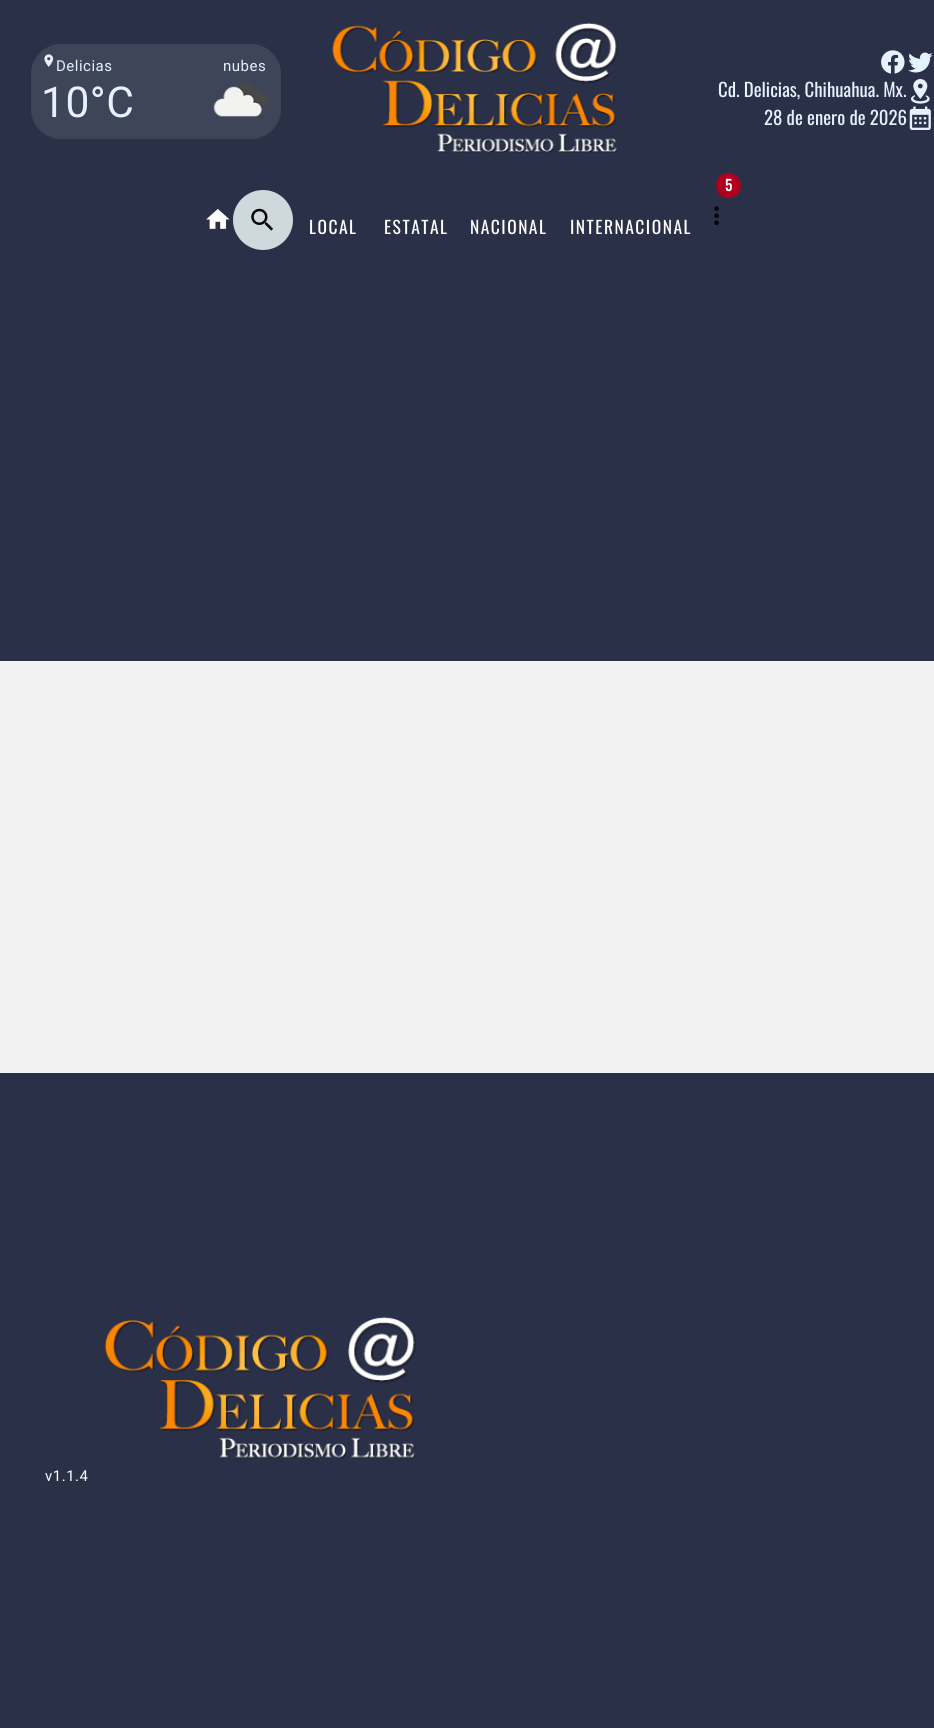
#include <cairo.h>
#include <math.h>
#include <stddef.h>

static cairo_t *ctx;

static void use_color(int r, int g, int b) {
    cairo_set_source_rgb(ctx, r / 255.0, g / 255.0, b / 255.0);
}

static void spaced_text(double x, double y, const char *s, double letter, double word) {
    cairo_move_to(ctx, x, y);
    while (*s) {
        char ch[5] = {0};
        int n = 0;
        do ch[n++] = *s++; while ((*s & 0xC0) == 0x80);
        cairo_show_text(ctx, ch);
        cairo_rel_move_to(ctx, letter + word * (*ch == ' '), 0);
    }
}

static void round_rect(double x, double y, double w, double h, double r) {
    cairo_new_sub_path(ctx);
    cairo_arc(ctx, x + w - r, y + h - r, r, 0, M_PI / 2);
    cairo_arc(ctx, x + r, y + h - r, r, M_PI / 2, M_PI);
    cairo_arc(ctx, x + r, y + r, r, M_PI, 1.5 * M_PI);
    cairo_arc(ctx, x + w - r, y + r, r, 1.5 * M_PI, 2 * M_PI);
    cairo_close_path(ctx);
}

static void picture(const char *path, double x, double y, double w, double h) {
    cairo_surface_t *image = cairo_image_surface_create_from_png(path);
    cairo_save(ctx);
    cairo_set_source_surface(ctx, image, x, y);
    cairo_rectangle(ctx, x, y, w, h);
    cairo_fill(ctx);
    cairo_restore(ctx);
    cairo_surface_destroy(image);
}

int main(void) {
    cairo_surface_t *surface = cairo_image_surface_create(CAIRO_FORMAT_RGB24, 934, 1728);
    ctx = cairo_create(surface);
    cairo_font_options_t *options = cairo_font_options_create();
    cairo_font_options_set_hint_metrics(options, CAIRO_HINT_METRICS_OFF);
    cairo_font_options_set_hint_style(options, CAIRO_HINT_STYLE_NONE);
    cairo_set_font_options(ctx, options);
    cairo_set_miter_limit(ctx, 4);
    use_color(41, 48, 71);
    cairo_paint(ctx);
    use_color(62, 69, 89);
    round_rect(31, 44, 250, 95, 30);
    cairo_fill(ctx);
    picture("img1.png", 44, 54, 10, 13);
    cairo_select_font_face(ctx, "Roboto", CAIRO_FONT_SLANT_NORMAL, CAIRO_FONT_WEIGHT_NORMAL);
    cairo_set_font_size(ctx, 15);
    use_color(227, 242, 253);
    spaced_text(56, 71, "Delicias", 0.5, 0);
    spaced_text(223, 71, "nubes", 0.5, 0);
    cairo_set_font_size(ctx, 42.5);
    spaced_text(41, 117, "10°C", 0.5, 0);
    picture("img2.png", 213, 82, 56, 35);
    picture("img3.png", 332, 22, 286, 131);
    picture("img4.png", 881, 50, 24, 24);
    picture("img5.png", 908, 52, 25, 21);
    cairo_select_font_face(ctx, "Oswald", CAIRO_FONT_SLANT_NORMAL, CAIRO_FONT_WEIGHT_NORMAL);
    cairo_set_font_size(ctx, 18.75);
    cairo_move_to(ctx, 718, 97);
    cairo_show_text(ctx, "Cd. Delicias, Chihuahua. Mx.");
    picture("img6.png", 910, 79, 20, 25);
    cairo_move_to(ctx, 764, 125);
    cairo_show_text(ctx, "28 de enero de 2026");
    picture("img7.png", 909, 106, 22, 24);
    use_color(176, 0, 32);
    cairo_arc(ctx, 728.5, 185.5, 12.5, 0, 2 * M_PI);
    cairo_fill(ctx);
    cairo_select_font_face(ctx, "Oswald Medium", CAIRO_FONT_SLANT_NORMAL, CAIRO_FONT_WEIGHT_NORMAL);
    cairo_set_font_size(ctx, 15);
    use_color(255, 255, 255);
    cairo_move_to(ctx, 725, 191);
    cairo_show_text(ctx, "5");
    picture("img8.png", 714, 206, 5, 19);
    picture("img9.png", 206, 209, 24, 20);
    use_color(207, 216, 220);
    cairo_arc(ctx, 263, 220, 30, 0, 2 * M_PI);
    cairo_fill(ctx);
    picture("img10.png", 251, 208, 22, 23);
    cairo_select_font_face(ctx, "Oswald", CAIRO_FONT_SLANT_NORMAL, CAIRO_FONT_WEIGHT_NORMAL);
    cairo_set_font_size(ctx, 17.5);
    use_color(255, 255, 255);
    spaced_text(309, 234, "LOCAL", 1.5, 0);
    spaced_text(384, 234, "ESTATAL", 1.5, 0);
    spaced_text(470, 234, "NACIONAL", 1.5, 0);
    spaced_text(570, 234, "INTERNACIONAL", 1.5, 0);
    use_color(242, 242, 242);
    cairo_rectangle(ctx, 0, 661, 934, 412);
    cairo_fill(ctx);
    picture("img11.png", 104, 1316, 313, 143);
    cairo_select_font_face(ctx, "Roboto", CAIRO_FONT_SLANT_NORMAL, CAIRO_FONT_WEIGHT_NORMAL);
    cairo_set_font_size(ctx, 15);
    use_color(255, 255, 255);
    spaced_text(45, 1481, "v1.1.4", 0.5, 0);
    cairo_surface_write_to_png(surface, "result.png");
    cairo_font_options_destroy(options);
    cairo_destroy(ctx);
    cairo_surface_destroy(surface);
    return 0;
}
